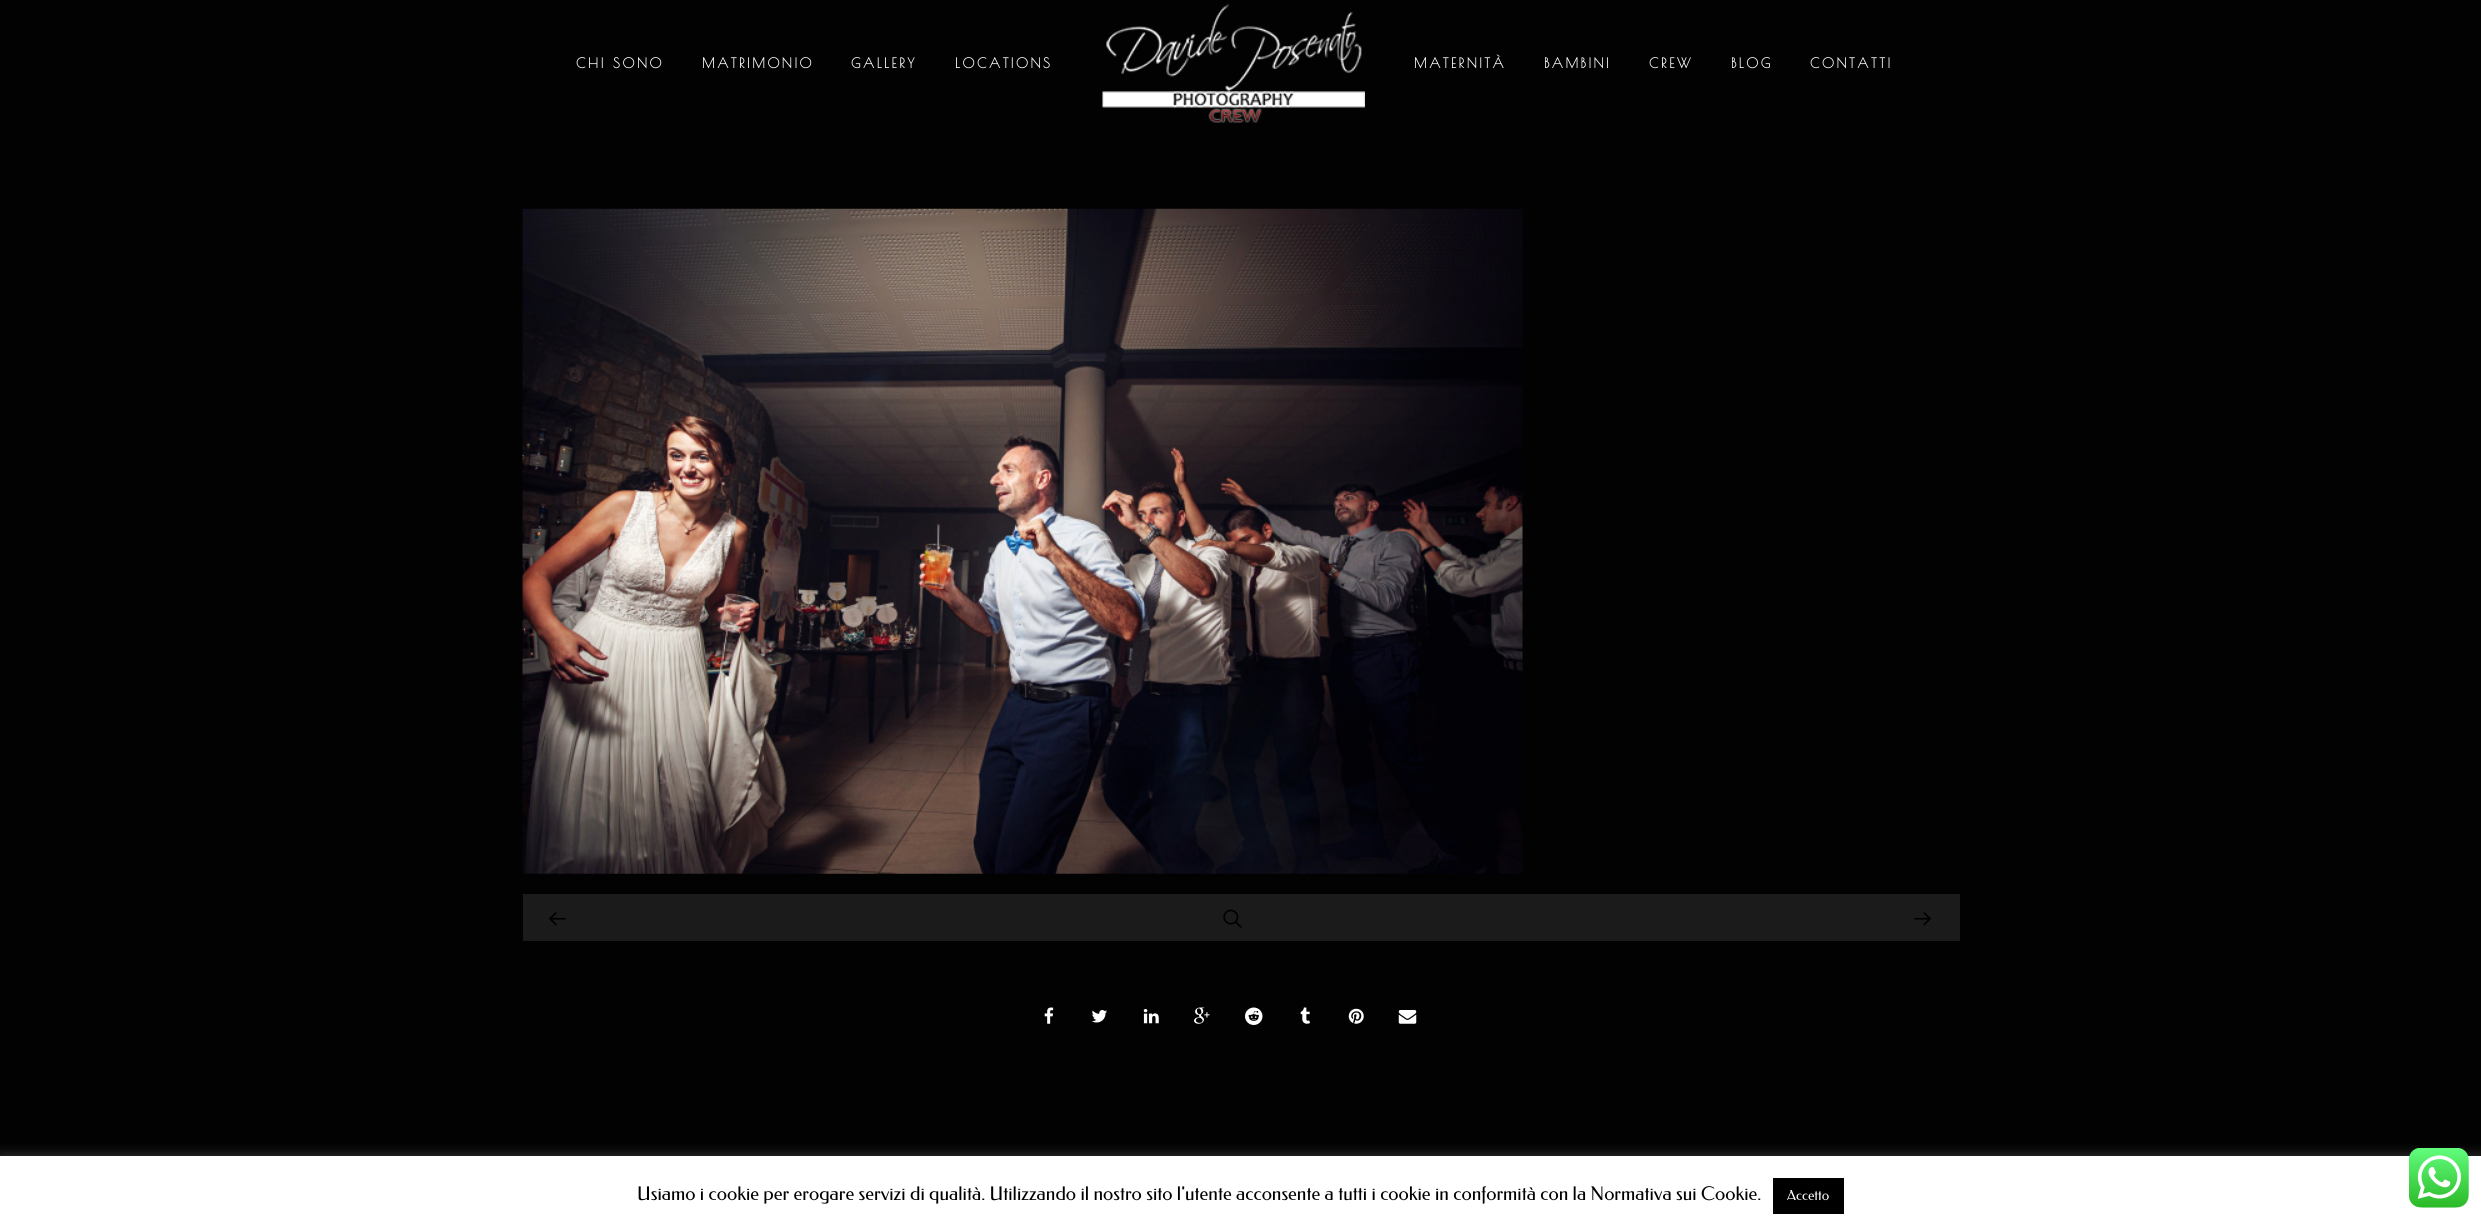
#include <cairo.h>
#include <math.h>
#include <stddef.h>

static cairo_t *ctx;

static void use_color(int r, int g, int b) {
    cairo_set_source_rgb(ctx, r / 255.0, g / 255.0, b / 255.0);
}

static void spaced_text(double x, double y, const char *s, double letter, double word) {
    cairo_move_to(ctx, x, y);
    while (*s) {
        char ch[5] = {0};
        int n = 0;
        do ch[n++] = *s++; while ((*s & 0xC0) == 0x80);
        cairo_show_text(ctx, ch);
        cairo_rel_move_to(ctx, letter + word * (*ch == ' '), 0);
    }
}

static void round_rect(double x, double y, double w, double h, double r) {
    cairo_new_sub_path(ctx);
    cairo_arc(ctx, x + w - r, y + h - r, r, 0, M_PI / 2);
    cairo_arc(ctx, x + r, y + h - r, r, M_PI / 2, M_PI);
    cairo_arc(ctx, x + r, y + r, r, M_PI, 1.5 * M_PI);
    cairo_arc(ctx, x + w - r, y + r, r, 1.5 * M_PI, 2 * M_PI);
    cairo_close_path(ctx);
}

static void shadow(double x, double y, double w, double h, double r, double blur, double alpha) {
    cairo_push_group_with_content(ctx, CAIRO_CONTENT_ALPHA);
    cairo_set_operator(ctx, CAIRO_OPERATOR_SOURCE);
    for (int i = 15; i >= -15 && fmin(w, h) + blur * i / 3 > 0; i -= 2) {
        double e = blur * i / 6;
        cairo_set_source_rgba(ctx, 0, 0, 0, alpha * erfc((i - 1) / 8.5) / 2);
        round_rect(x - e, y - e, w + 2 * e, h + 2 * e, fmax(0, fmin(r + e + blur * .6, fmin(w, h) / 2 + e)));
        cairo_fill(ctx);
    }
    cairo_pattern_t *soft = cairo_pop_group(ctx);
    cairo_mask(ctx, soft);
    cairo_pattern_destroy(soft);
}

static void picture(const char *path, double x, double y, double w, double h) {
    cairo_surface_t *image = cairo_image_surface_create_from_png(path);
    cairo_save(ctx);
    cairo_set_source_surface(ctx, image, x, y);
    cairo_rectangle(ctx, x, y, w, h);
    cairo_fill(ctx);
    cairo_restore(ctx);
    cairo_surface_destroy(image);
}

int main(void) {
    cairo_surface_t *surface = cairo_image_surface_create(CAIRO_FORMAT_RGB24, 2481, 1228);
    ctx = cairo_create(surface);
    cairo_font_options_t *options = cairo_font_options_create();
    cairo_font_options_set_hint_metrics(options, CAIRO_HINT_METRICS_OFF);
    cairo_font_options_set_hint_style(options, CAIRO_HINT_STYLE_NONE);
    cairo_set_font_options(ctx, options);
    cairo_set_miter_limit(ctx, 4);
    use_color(2, 2, 2);
    cairo_paint(ctx);
    cairo_select_font_face(ctx, "Poiret One", CAIRO_FONT_SLANT_NORMAL, CAIRO_FONT_WEIGHT_BOLD);
    cairo_set_font_size(ctx, 13.75);
    use_color(255, 255, 255);
    spaced_text(576, 68, "CHI SONO", 2.5, 0);
    spaced_text(702, 68, "MATRIMONIO", 2.5, 0);
    spaced_text(851, 68, "GALLERY", 2.5, 0);
    spaced_text(955, 68, "LOCATIONS", 2.5, 0);
    picture("img1.png", 1102, 3, 263, 120);
    spaced_text(1414, 68, "MATERNITÀ", 2.5, 0);
    spaced_text(1544, 68, "BAMBINI", 2.5, 0);
    spaced_text(1649, 68, "CREW", 2.5, 0);
    spaced_text(1731, 68, "BLOG", 2.5, 0);
    spaced_text(1810, 68, "CONTATTI", 2.5, 0);
    picture("img2.png", 522, 208, 1001, 666);
    use_color(27, 27, 27);
    cairo_rectangle(ctx, 523, 894, 1437, 47);
    cairo_fill(ctx);
    picture("img3.png", 549, 912, 17, 14);
    picture("img4.png", 1223, 909, 19, 19);
    picture("img5.png", 1914, 912, 17, 14);
    picture("img6.png", 1044, 1007, 10, 17);
    picture("img7.png", 1091, 1010, 16, 13);
    picture("img8.png", 1143, 1009, 16, 15);
    picture("img9.png", 1194, 1007, 16, 17);
    picture("img10.png", 1245, 1007, 18, 18);
    picture("img11.png", 1300, 1007, 10, 17);
    picture("img12.png", 1348, 1008, 16, 16);
    picture("img13.png", 1398, 1010, 19, 14);
    use_color(172, 171, 171);
    shadow(0, 1155, 2481, 73, 0, 6, 0.3);
    use_color(255, 255, 255);
    cairo_rectangle(ctx, 0, 1156, 2481, 72);
    cairo_fill(ctx);
    cairo_select_font_face(ctx, "Federo", CAIRO_FONT_SLANT_NORMAL, CAIRO_FONT_WEIGHT_NORMAL);
    cairo_set_font_size(ctx, 18.75);
    use_color(0, 0, 0);
    cairo_move_to(ctx, 637, 1200);
    cairo_show_text(ctx, "Usiamo i cookie per erogare servizi di qualità. Utilizzando il nostro sito l'utente acconsente a tutti i cookie in conformità con la Normativa sui Cookie.");
    cairo_rectangle(ctx, 1773, 1178, 71, 36);
    cairo_fill(ctx);
    cairo_set_font_size(ctx, 13.75);
    use_color(255, 255, 255);
    cairo_move_to(ctx, 1787, 1200);
    cairo_show_text(ctx, "Accetto");
    picture("img14.png", 2409, 1148, 60, 60);
    cairo_surface_write_to_png(surface, "result.png");
    cairo_font_options_destroy(options);
    cairo_destroy(ctx);
    cairo_surface_destroy(surface);
    return 0;
}
